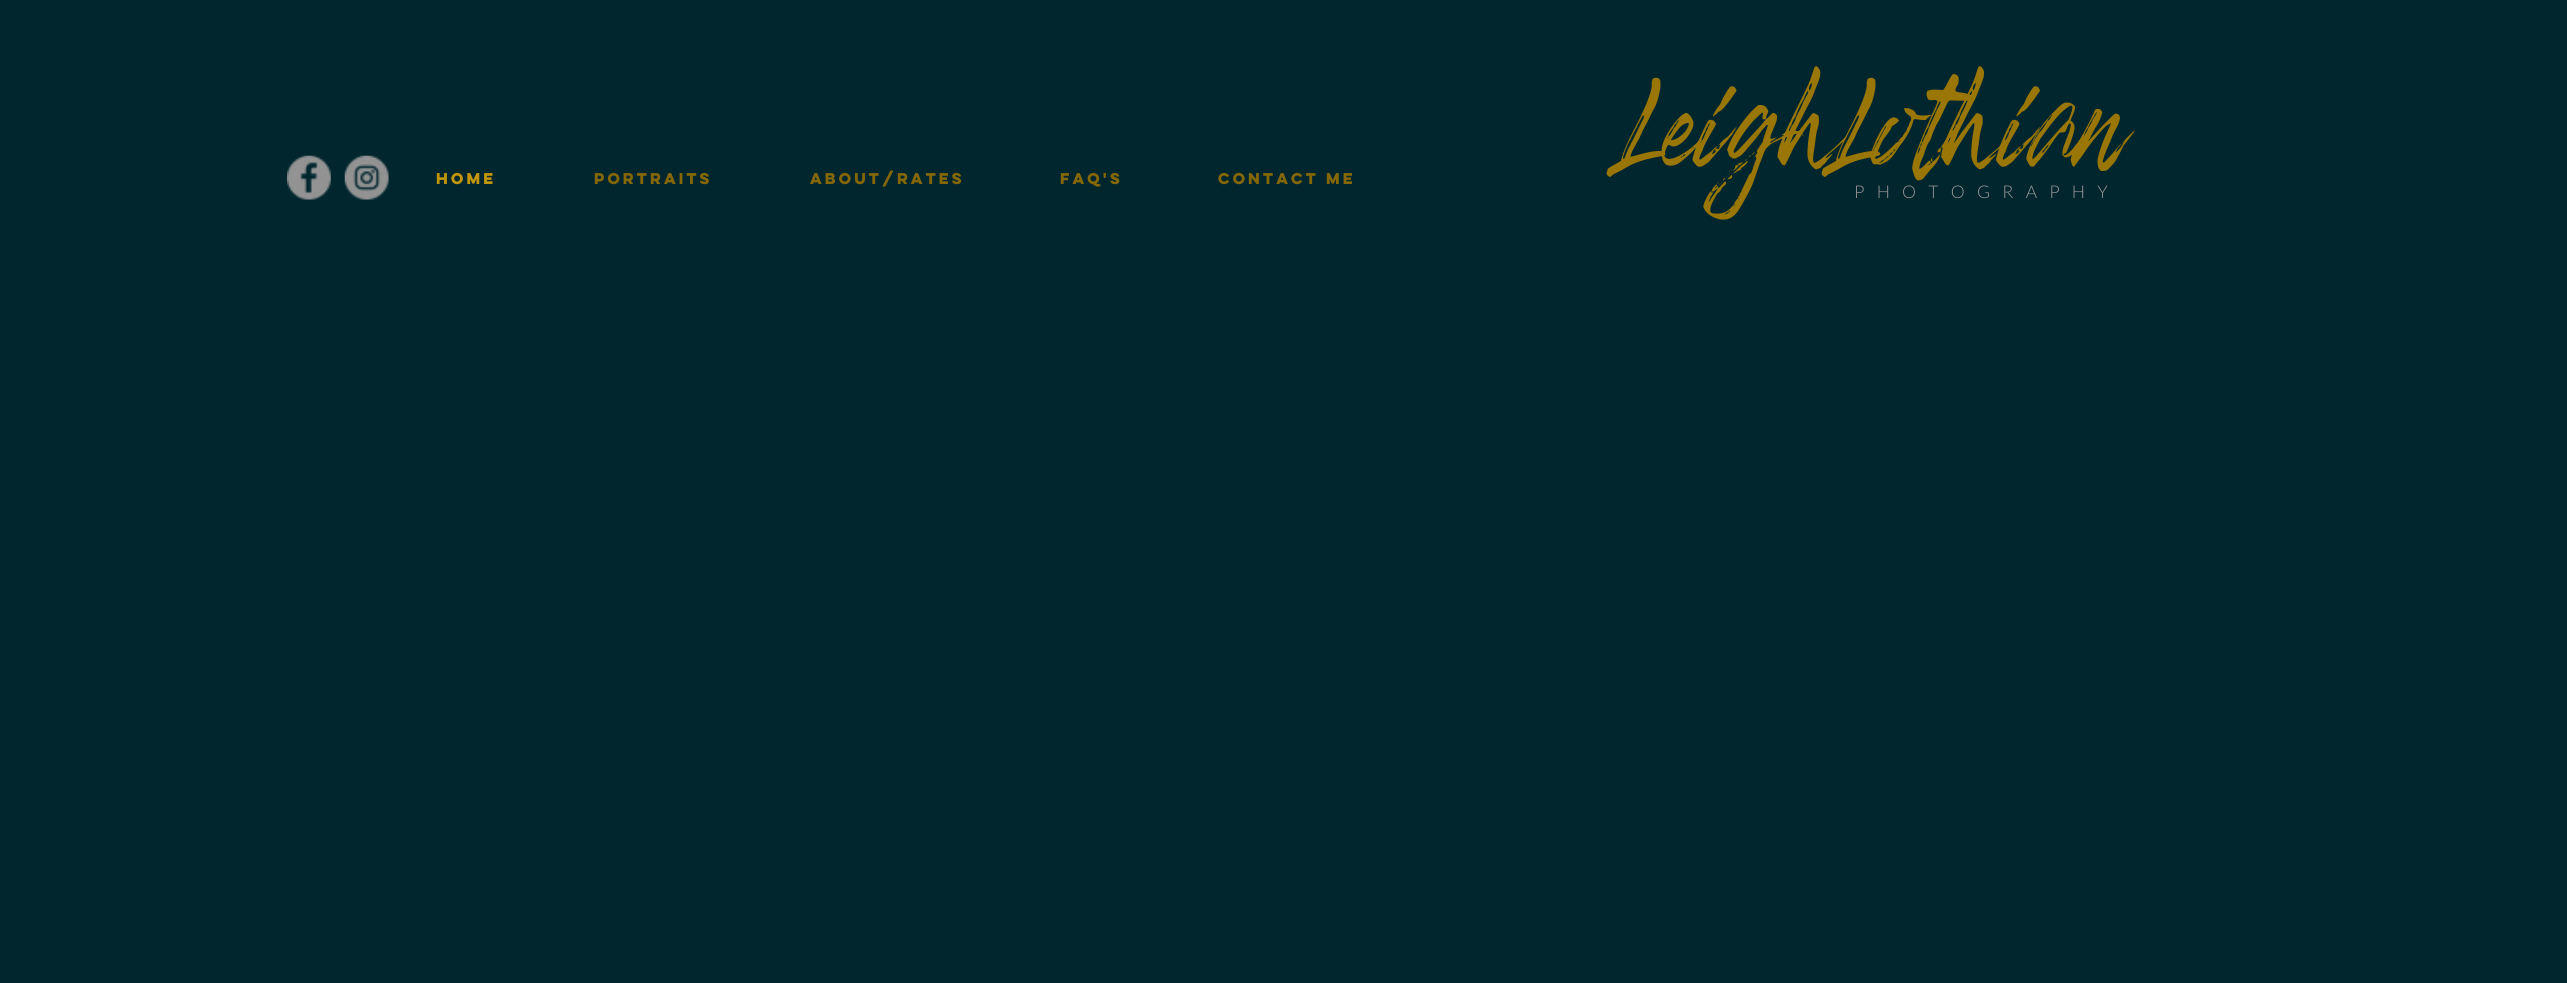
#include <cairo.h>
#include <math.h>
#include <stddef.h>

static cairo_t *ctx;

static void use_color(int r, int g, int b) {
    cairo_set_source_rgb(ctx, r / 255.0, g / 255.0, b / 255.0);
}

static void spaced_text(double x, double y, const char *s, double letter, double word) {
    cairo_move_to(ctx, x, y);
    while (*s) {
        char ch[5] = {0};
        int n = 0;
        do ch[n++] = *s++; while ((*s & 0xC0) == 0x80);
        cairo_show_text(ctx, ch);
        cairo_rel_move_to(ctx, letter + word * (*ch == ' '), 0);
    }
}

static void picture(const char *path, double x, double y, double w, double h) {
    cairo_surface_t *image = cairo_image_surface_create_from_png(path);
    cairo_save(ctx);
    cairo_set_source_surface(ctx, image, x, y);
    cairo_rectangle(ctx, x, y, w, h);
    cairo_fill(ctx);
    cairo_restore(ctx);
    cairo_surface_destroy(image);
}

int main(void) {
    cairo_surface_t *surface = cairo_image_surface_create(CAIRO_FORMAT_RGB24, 2567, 983);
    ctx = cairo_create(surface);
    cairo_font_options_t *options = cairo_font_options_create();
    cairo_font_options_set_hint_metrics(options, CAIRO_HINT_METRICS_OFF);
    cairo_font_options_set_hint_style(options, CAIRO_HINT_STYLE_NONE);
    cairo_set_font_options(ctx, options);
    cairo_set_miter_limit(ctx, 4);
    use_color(1, 38, 46);
    cairo_paint(ctx);
    picture("img1.png", 287, 155, 44, 45);
    picture("img2.png", 344, 155, 45, 45);
    cairo_select_font_face(ctx, "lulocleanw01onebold", CAIRO_FONT_SLANT_NORMAL, CAIRO_FONT_WEIGHT_BOLD);
    cairo_set_font_size(ctx, 14);
    use_color(194, 150, 8);
    cairo_move_to(ctx, 436, 184);
    cairo_show_text(ctx, "HOME");
    use_color(133, 103, 5);
    cairo_move_to(ctx, 594, 184);
    cairo_show_text(ctx, "PORTRAITS");
    cairo_move_to(ctx, 810, 184);
    cairo_show_text(ctx, "ABOUT/RATES");
    cairo_move_to(ctx, 1060, 184);
    cairo_show_text(ctx, "FAQ'S");
    cairo_move_to(ctx, 1218, 184);
    cairo_show_text(ctx, "CONTACT ME");
    cairo_select_font_face(ctx, "Lato Light", CAIRO_FONT_SLANT_NORMAL, CAIRO_FONT_WEIGHT_NORMAL);
    cairo_set_font_size(ctx, 17.5);
    use_color(153, 153, 151);
    spaced_text(1854, 198, "PHOTOGRAPHY", 12.25, 0);
    cairo_select_font_face(ctx, "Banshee", CAIRO_FONT_SLANT_NORMAL, CAIRO_FONT_WEIGHT_NORMAL);
    cairo_set_font_size(ctx, 145);
    use_color(153, 118, 5);
    cairo_move_to(ctx, 1621, 165);
    cairo_show_text(ctx, "LeighLothian");
    cairo_surface_write_to_png(surface, "result.png");
    cairo_font_options_destroy(options);
    cairo_destroy(ctx);
    cairo_surface_destroy(surface);
    return 0;
}
